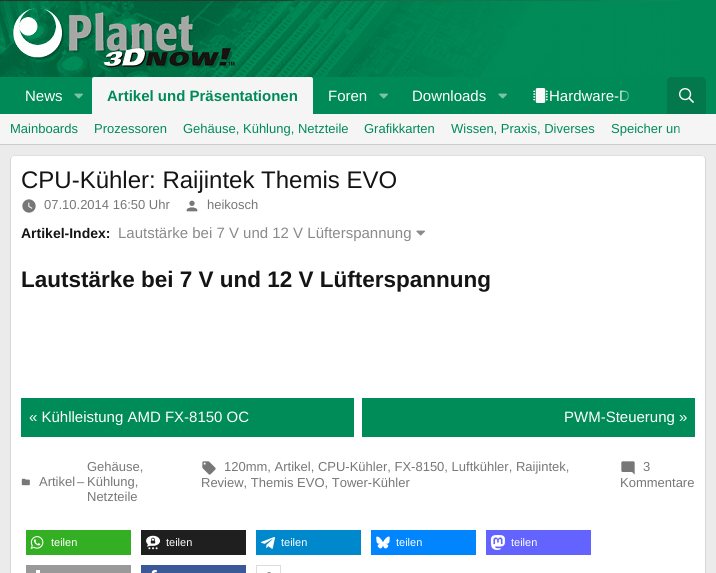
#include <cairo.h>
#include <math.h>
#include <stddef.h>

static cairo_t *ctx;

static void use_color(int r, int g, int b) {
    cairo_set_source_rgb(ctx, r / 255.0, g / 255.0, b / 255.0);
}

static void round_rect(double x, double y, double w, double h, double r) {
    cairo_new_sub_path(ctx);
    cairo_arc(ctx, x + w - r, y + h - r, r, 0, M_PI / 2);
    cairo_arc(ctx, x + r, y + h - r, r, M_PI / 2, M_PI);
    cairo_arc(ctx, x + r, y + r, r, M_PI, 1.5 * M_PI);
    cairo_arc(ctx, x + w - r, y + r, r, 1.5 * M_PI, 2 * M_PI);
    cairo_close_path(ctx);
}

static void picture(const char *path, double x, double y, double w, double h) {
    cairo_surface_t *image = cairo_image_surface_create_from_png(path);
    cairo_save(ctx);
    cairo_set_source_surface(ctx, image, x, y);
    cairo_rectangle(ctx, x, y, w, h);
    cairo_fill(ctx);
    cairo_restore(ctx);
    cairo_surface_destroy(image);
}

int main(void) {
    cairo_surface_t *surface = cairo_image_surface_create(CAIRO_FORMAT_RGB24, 716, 573);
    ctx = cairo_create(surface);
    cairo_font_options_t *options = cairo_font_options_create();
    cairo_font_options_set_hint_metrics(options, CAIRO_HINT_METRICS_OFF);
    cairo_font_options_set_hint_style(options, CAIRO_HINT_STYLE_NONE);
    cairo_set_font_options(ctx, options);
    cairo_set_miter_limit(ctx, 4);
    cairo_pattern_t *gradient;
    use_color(235, 235, 235);
    cairo_paint(ctx);
    use_color(0, 138, 87);
    cairo_rectangle(ctx, 0, 0, 716, 114);
    cairo_fill(ctx);
    picture("img1.png", 0, 0, 681, 77);
    picture("img2.png", 13, 8, 222, 61);
    cairo_select_font_face(ctx, "Liberation Sans", CAIRO_FONT_SLANT_NORMAL, CAIRO_FONT_WEIGHT_NORMAL);
    cairo_set_font_size(ctx, 15);
    use_color(255, 255, 255);
    cairo_move_to(ctx, 25, 101);
    cairo_show_text(ctx, "News");
    picture("img3.png", 74, 93, 9, 6);
    use_color(245, 245, 245);
    cairo_new_path(ctx);
    cairo_move_to(ctx, 94, 77);
    cairo_line_to(ctx, 311, 77);
    cairo_curve_to(ctx, 312, 77, 313, 78, 313, 79);
    cairo_line_to(ctx, 313, 114);
    cairo_line_to(ctx, 92, 114);
    cairo_line_to(ctx, 92, 79);
    cairo_curve_to(ctx, 92, 78, 93, 77, 94, 77);
    cairo_close_path(ctx);
    cairo_fill(ctx);
    cairo_select_font_face(ctx, "Liberation Sans", CAIRO_FONT_SLANT_NORMAL, CAIRO_FONT_WEIGHT_BOLD);
    use_color(0, 138, 87);
    cairo_move_to(ctx, 107, 101);
    cairo_show_text(ctx, "Artikel und Präsentationen");
    cairo_select_font_face(ctx, "Liberation Sans", CAIRO_FONT_SLANT_NORMAL, CAIRO_FONT_WEIGHT_NORMAL);
    use_color(255, 255, 255);
    cairo_move_to(ctx, 328, 101);
    cairo_show_text(ctx, "Foren");
    picture("img3.png", 379, 93, 9, 6);
    cairo_move_to(ctx, 412, 101);
    cairo_show_text(ctx, "Downloads");
    picture("img3.png", 498, 93, 9, 6);
    picture("img4.png", 533, 88, 15, 15);
    cairo_move_to(ctx, 549, 101);
    cairo_show_text(ctx, "Hardware-D");
    gradient = cairo_pattern_create_linear(619, 96, 659, 96);
    cairo_pattern_add_color_stop_rgba(gradient, 0, 0, 0.541, 0.341, 0);
    cairo_pattern_add_color_stop_rgba(gradient, 0.33, 0, 0.541, 0.341, 1);
    cairo_set_source(ctx, gradient);
    cairo_pattern_destroy(gradient);
    cairo_rectangle(ctx, 620, 90, 10, 11);
    cairo_fill(ctx);
    use_color(3, 120, 77);
    cairo_new_path(ctx);
    cairo_move_to(ctx, 671, 77);
    cairo_line_to(ctx, 702, 77);
    cairo_curve_to(ctx, 704, 77, 706, 79, 706, 81);
    cairo_line_to(ctx, 706, 114);
    cairo_line_to(ctx, 667, 114);
    cairo_line_to(ctx, 667, 81);
    cairo_curve_to(ctx, 667, 79, 669, 77, 671, 77);
    cairo_close_path(ctx);
    cairo_fill(ctx);
    picture("img5.png", 679, 88, 15, 15);
    use_color(245, 245, 245);
    cairo_rectangle(ctx, 0, 114, 689, 30);
    cairo_fill(ctx);
    use_color(204, 204, 204);
    cairo_rectangle(ctx, 0, 144, 716, 1);
    cairo_fill(ctx);
    cairo_set_font_size(ctx, 13);
    use_color(0, 138, 87);
    cairo_move_to(ctx, 10, 133);
    cairo_show_text(ctx, "Mainboards");
    cairo_move_to(ctx, 94, 133);
    cairo_show_text(ctx, "Prozessoren");
    cairo_move_to(ctx, 183, 133);
    cairo_show_text(ctx, "Gehäuse, Kühlung, Netzteile");
    cairo_move_to(ctx, 364, 133);
    cairo_show_text(ctx, "Grafikkarten");
    cairo_move_to(ctx, 451, 133);
    cairo_show_text(ctx, "Wissen, Praxis, Diverses");
    cairo_move_to(ctx, 611, 133);
    cairo_show_text(ctx, "Speicher un");
    gradient = cairo_pattern_create_linear(676, 129, 716, 129);
    cairo_pattern_add_color_stop_rgba(gradient, 0, 0.961, 0.961, 0.961, 0);
    cairo_pattern_add_color_stop_rgba(gradient, 0.33, 0.961, 0.961, 0.961, 1);
    cairo_set_source(ctx, gradient);
    cairo_pattern_destroy(gradient);
    cairo_rectangle(ctx, 676, 114, 40, 30);
    cairo_fill(ctx);
    use_color(255, 255, 255);
    round_rect(10, 155, 696, 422, 4);
    cairo_fill(ctx);
    cairo_new_path(ctx);
    cairo_move_to(ctx, 11.5, 156.5);
    cairo_line_to(ctx, 14, 155.5);
    cairo_line_to(ctx, 702, 155.5);
    cairo_line_to(ctx, 704.5, 156.5);
    use_color(224, 224, 224);
    cairo_set_line_width(ctx, 1);
    cairo_stroke(ctx);
    cairo_new_path(ctx);
    cairo_move_to(ctx, 704.5, 156.5);
    cairo_line_to(ctx, 705.5, 159);
    cairo_line_to(ctx, 705.5, 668);
    cairo_line_to(ctx, 704.5, 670.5);
    use_color(214, 214, 214);
    cairo_stroke(ctx);
    cairo_new_path(ctx);
    cairo_move_to(ctx, 11.5, 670.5);
    cairo_line_to(ctx, 10.5, 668);
    cairo_line_to(ctx, 10.5, 159);
    cairo_line_to(ctx, 11.5, 156.5);
    cairo_stroke(ctx);
    cairo_set_font_size(ctx, 24);
    use_color(20, 20, 20);
    cairo_move_to(ctx, 21, 188);
    cairo_show_text(ctx, "CPU-Kühler: Raijintek Themis EVO");
    picture("img6.png", 22, 199, 14, 14);
    cairo_set_font_size(ctx, 13);
    use_color(119, 119, 119);
    cairo_move_to(ctx, 44, 209);
    cairo_show_text(ctx, "07.10.2014 16:50 Uhr");
    picture("img7.png", 186, 200, 12, 12);
    cairo_move_to(ctx, 207, 209);
    cairo_show_text(ctx, "heikosch");
    cairo_select_font_face(ctx, "Liberation Sans", CAIRO_FONT_SLANT_NORMAL, CAIRO_FONT_WEIGHT_BOLD);
    cairo_set_font_size(ctx, 14);
    use_color(20, 20, 20);
    cairo_move_to(ctx, 21, 238);
    cairo_show_text(ctx, "Artikel-Index:");
    cairo_select_font_face(ctx, "Liberation Sans", CAIRO_FONT_SLANT_NORMAL, CAIRO_FONT_WEIGHT_NORMAL);
    cairo_set_font_size(ctx, 15);
    use_color(138, 138, 138);
    cairo_move_to(ctx, 118, 238);
    cairo_show_text(ctx, "Lautstärke bei 7 V und 12 V Lüfterspannung");
    picture("img8.png", 416, 230, 9, 6);
    cairo_select_font_face(ctx, "Liberation Sans", CAIRO_FONT_SLANT_NORMAL, CAIRO_FONT_WEIGHT_BOLD);
    cairo_set_font_size(ctx, 22.5);
    use_color(20, 20, 20);
    cairo_move_to(ctx, 21, 287);
    cairo_show_text(ctx, "Lautstärke bei 7 V und 12 V Lüfterspannung");
    use_color(0, 140, 88);
    cairo_rectangle(ctx, 21, 398, 333, 39);
    cairo_fill(ctx);
    cairo_select_font_face(ctx, "Liberation Sans", CAIRO_FONT_SLANT_NORMAL, CAIRO_FONT_WEIGHT_NORMAL);
    cairo_set_font_size(ctx, 15);
    use_color(255, 255, 255);
    cairo_move_to(ctx, 29, 422);
    cairo_show_text(ctx, "« Kühlleistung AMD FX-8150 OC");
    use_color(0, 140, 88);
    cairo_rectangle(ctx, 362, 398, 333, 39);
    cairo_fill(ctx);
    use_color(255, 255, 255);
    cairo_move_to(ctx, 564, 422);
    cairo_show_text(ctx, "PWM-Steuerung »");
    picture("img9.png", 21, 478, 9, 8);
    cairo_set_font_size(ctx, 13);
    use_color(119, 119, 119);
    cairo_move_to(ctx, 39, 486);
    cairo_show_text(ctx, "Artikel");
    cairo_move_to(ctx, 77, 486);
    cairo_show_text(ctx, "–");
    cairo_move_to(ctx, 87, 471);
    cairo_show_text(ctx, "Gehäuse,");
    cairo_move_to(ctx, 87, 486);
    cairo_show_text(ctx, "Kühlung,");
    cairo_move_to(ctx, 87, 501);
    cairo_show_text(ctx, "Netzteile");
    picture("img10.png", 202, 461, 14, 14);
    cairo_move_to(ctx, 224, 471);
    cairo_show_text(ctx, "120mm, Artikel, CPU-Kühler, FX-8150, Luftkühler, Raijintek,");
    cairo_move_to(ctx, 201, 487);
    cairo_show_text(ctx, "Review, Themis EVO, Tower-Kühler");
    picture("img11.png", 621, 461, 14, 14);
    cairo_move_to(ctx, 643, 471);
    cairo_show_text(ctx, "3");
    cairo_move_to(ctx, 620, 487);
    cairo_show_text(ctx, "Kommentare");
    use_color(52, 175, 35);
    cairo_rectangle(ctx, 26, 530, 105, 25);
    cairo_fill(ctx);
    picture("img12.png", 30, 536, 14, 13);
    cairo_set_font_size(ctx, 11);
    use_color(255, 255, 255);
    cairo_move_to(ctx, 51, 546);
    cairo_show_text(ctx, "teilen");
    use_color(31, 31, 31);
    cairo_rectangle(ctx, 141, 530, 105, 25);
    cairo_fill(ctx);
    picture("img13.png", 146, 535, 15, 15);
    use_color(255, 255, 255);
    cairo_move_to(ctx, 166, 546);
    cairo_show_text(ctx, "teilen");
    use_color(0, 136, 204);
    cairo_rectangle(ctx, 256, 530, 105, 25);
    cairo_fill(ctx);
    picture("img14.png", 261, 537, 14, 12);
    use_color(255, 255, 255);
    cairo_move_to(ctx, 281, 546);
    cairo_show_text(ctx, "teilen");
    use_color(0, 133, 255);
    cairo_rectangle(ctx, 371, 530, 105, 25);
    cairo_fill(ctx);
    picture("img15.png", 376, 536, 14, 13);
    use_color(255, 255, 255);
    cairo_move_to(ctx, 396, 546);
    cairo_show_text(ctx, "teilen");
    use_color(99, 100, 255);
    cairo_rectangle(ctx, 486, 530, 105, 25);
    cairo_fill(ctx);
    picture("img16.png", 490, 535, 15, 15);
    use_color(255, 255, 255);
    cairo_move_to(ctx, 511, 546);
    cairo_show_text(ctx, "teilen");
    use_color(153, 153, 153);
    cairo_rectangle(ctx, 26, 565, 105, 8);
    cairo_fill(ctx);
    use_color(255, 255, 255);
    cairo_rectangle(ctx, 36, 570, 4, 3);
    cairo_fill(ctx);
    use_color(59, 89, 152);
    cairo_rectangle(ctx, 141, 565, 105, 8);
    cairo_fill(ctx);
    picture("img17.png", 151, 570, 6, 3);
    cairo_rectangle(ctx, 256.5, 565.5, 24, 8);
    use_color(221, 221, 221);
    cairo_stroke(ctx);
    picture("img18.png", 267, 572, 4, 1);
    cairo_surface_write_to_png(surface, "result.png");
    cairo_font_options_destroy(options);
    cairo_destroy(ctx);
    cairo_surface_destroy(surface);
    return 0;
}
